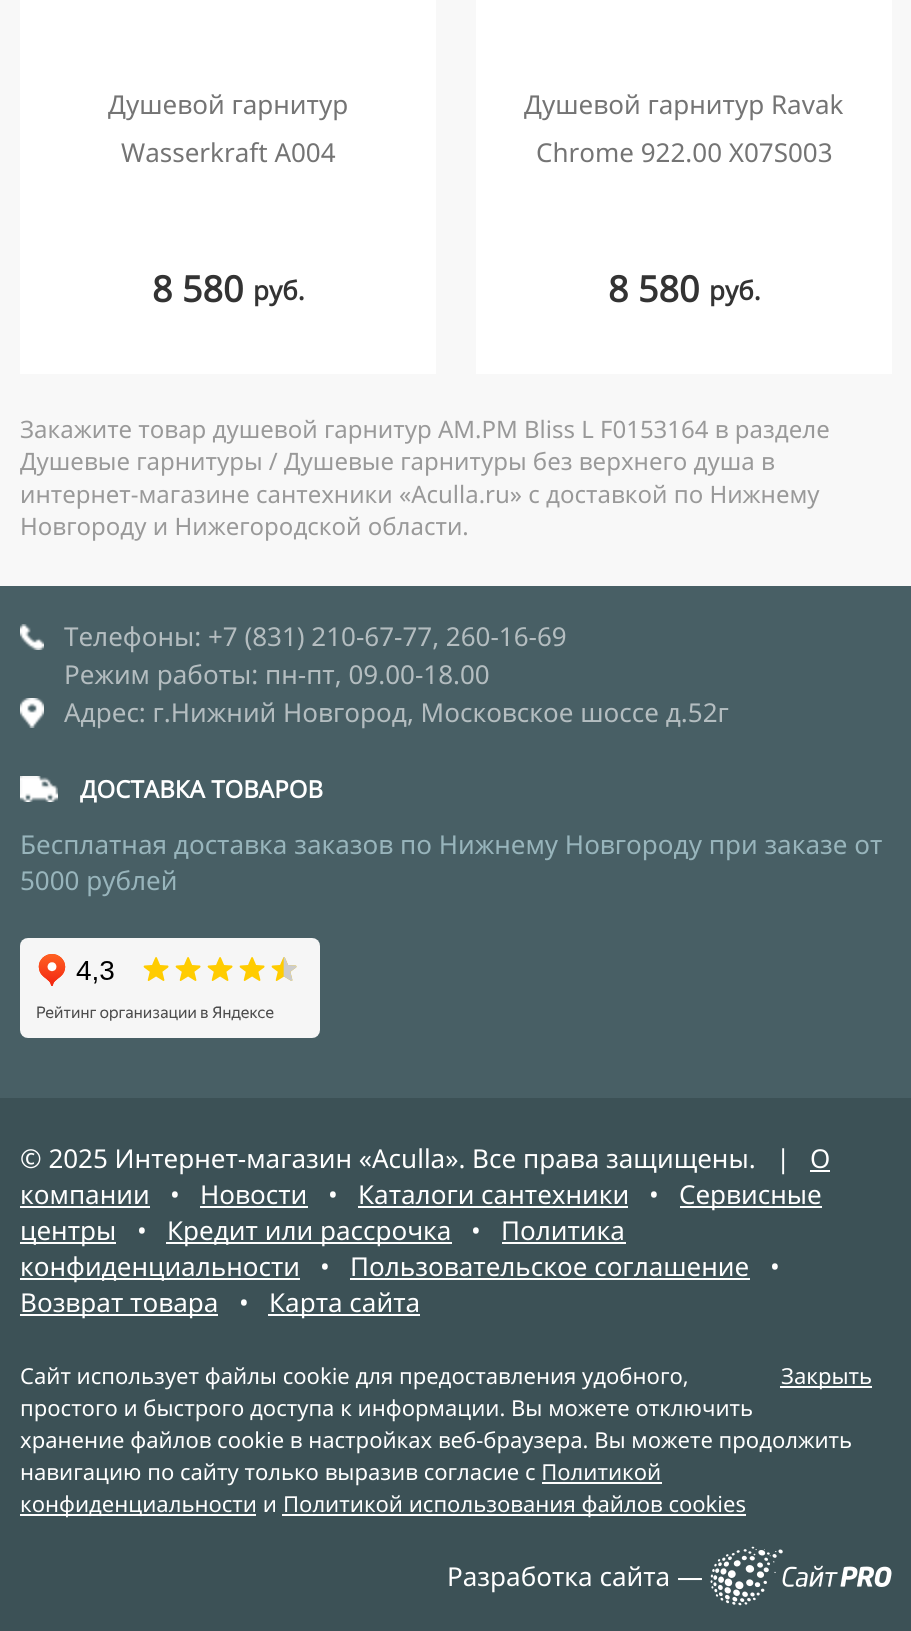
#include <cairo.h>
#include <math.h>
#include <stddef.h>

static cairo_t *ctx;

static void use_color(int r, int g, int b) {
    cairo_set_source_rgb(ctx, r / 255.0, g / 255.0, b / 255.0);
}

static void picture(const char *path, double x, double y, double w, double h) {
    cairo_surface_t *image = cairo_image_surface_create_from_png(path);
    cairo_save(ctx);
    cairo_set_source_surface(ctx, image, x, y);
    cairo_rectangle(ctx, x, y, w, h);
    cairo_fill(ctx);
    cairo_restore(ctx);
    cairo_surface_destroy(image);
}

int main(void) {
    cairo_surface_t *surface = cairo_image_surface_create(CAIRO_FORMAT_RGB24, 911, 1631);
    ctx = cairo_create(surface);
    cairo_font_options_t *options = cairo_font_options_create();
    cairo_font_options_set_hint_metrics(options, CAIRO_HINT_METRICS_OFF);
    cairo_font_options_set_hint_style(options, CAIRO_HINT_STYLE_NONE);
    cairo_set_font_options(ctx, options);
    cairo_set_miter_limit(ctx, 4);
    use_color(248, 248, 248);
    cairo_paint(ctx);
    use_color(255, 255, 255);
    cairo_rectangle(ctx, 20, 0, 416, 374);
    cairo_fill(ctx);
    cairo_select_font_face(ctx, "Noto Sans", CAIRO_FONT_SLANT_NORMAL, CAIRO_FONT_WEIGHT_NORMAL);
    cairo_set_font_size(ctx, 26);
    use_color(116, 116, 116);
    cairo_move_to(ctx, 108, 114);
    cairo_show_text(ctx, "Душевой гарнитур");
    cairo_move_to(ctx, 121, 162);
    cairo_show_text(ctx, "Wasserkraft A004");
    cairo_select_font_face(ctx, "Noto Sans", CAIRO_FONT_SLANT_NORMAL, CAIRO_FONT_WEIGHT_BOLD);
    cairo_set_font_size(ctx, 36);
    use_color(51, 51, 51);
    cairo_move_to(ctx, 152, 302);
    cairo_show_text(ctx, "8 580");
    cairo_set_font_size(ctx, 26);
    cairo_move_to(ctx, 253, 300);
    cairo_show_text(ctx, "руб.");
    use_color(255, 255, 255);
    cairo_rectangle(ctx, 476, 0, 416, 374);
    cairo_fill(ctx);
    cairo_select_font_face(ctx, "Noto Sans", CAIRO_FONT_SLANT_NORMAL, CAIRO_FONT_WEIGHT_NORMAL);
    use_color(116, 116, 116);
    cairo_move_to(ctx, 524, 114);
    cairo_show_text(ctx, "Душевой гарнитур Ravak");
    cairo_move_to(ctx, 536, 162);
    cairo_show_text(ctx, "Chrome 922.00 X07S003");
    cairo_select_font_face(ctx, "Noto Sans", CAIRO_FONT_SLANT_NORMAL, CAIRO_FONT_WEIGHT_BOLD);
    cairo_set_font_size(ctx, 36);
    use_color(51, 51, 51);
    cairo_move_to(ctx, 608, 302);
    cairo_show_text(ctx, "8 580");
    cairo_set_font_size(ctx, 26);
    cairo_move_to(ctx, 709, 300);
    cairo_show_text(ctx, "руб.");
    cairo_select_font_face(ctx, "Noto Sans", CAIRO_FONT_SLANT_NORMAL, CAIRO_FONT_WEIGHT_NORMAL);
    cairo_set_font_size(ctx, 24);
    use_color(153, 153, 153);
    cairo_move_to(ctx, 20, 438);
    cairo_show_text(ctx, "Закажите товар душевой гарнитур AM.PM Bliss L F0153164 в разделе");
    cairo_move_to(ctx, 20, 470);
    cairo_show_text(ctx, "Душевые гарнитуры / Душевые гарнитуры без верхнего душа в");
    cairo_move_to(ctx, 20, 503);
    cairo_show_text(ctx, "интернет-магазине сантехники «Aculla.ru» с доставкой по Нижнему");
    cairo_move_to(ctx, 20, 535);
    cairo_show_text(ctx, "Новгороду и Нижегородской области.");
    use_color(72, 95, 101);
    cairo_rectangle(ctx, 0, 586, 911, 512);
    cairo_fill(ctx);
    picture("img1.png", 20, 624, 24, 26);
    cairo_set_font_size(ctx, 26);
    use_color(180, 189, 192);
    cairo_move_to(ctx, 64, 646);
    cairo_show_text(ctx, "Телефоны: +7 (831) 210-67-77, 260-16-69");
    cairo_move_to(ctx, 64, 684);
    cairo_show_text(ctx, "Режим работы: пн-пт, 09.00-18.00");
    picture("img2.png", 20, 698, 24, 30);
    cairo_move_to(ctx, 64, 722);
    cairo_show_text(ctx, "Адрес: г.Нижний Новгород, Московское шоссе д.52г");
    picture("img3.png", 20, 776, 38, 26);
    cairo_select_font_face(ctx, "Noto Sans", CAIRO_FONT_SLANT_NORMAL, CAIRO_FONT_WEIGHT_BOLD);
    cairo_set_font_size(ctx, 24);
    use_color(255, 255, 255);
    cairo_move_to(ctx, 80, 798);
    cairo_show_text(ctx, "ДОСТАВКА ТОВАРОВ");
    cairo_select_font_face(ctx, "Noto Sans", CAIRO_FONT_SLANT_NORMAL, CAIRO_FONT_WEIGHT_NORMAL);
    cairo_set_font_size(ctx, 26);
    use_color(152, 181, 188);
    cairo_move_to(ctx, 20, 854);
    cairo_show_text(ctx, "Бесплатная доставка заказов по Нижнему Новгороду при заказе от");
    cairo_move_to(ctx, 20, 890);
    cairo_show_text(ctx, "5000 рублей");
    picture("img4.png", 20, 938, 300, 100);
    use_color(60, 81, 86);
    cairo_rectangle(ctx, 0, 1098, 911, 533);
    cairo_fill(ctx);
    use_color(255, 255, 255);
    cairo_move_to(ctx, 20, 1168);
    cairo_show_text(ctx, "© 2025 Интернет-магазин «Aculla». Все права защищены.   |");
    cairo_move_to(ctx, 810, 1168);
    cairo_show_text(ctx, "О");
    cairo_rectangle(ctx, 810, 1170, 20, 2);
    cairo_fill(ctx);
    cairo_move_to(ctx, 20, 1204);
    cairo_show_text(ctx, "компании");
    cairo_rectangle(ctx, 20, 1206, 130, 2);
    cairo_fill(ctx);
    cairo_move_to(ctx, 170, 1204);
    cairo_show_text(ctx, "•");
    cairo_move_to(ctx, 200, 1204);
    cairo_show_text(ctx, "Новости");
    cairo_rectangle(ctx, 200, 1206, 108, 2);
    cairo_fill(ctx);
    cairo_move_to(ctx, 328, 1204);
    cairo_show_text(ctx, "•");
    cairo_move_to(ctx, 358, 1204);
    cairo_show_text(ctx, "Каталоги сантехники");
    cairo_rectangle(ctx, 358, 1206, 270, 2);
    cairo_fill(ctx);
    cairo_move_to(ctx, 649, 1204);
    cairo_show_text(ctx, "•");
    cairo_rectangle(ctx, 680, 1206, 142, 2);
    cairo_fill(ctx);
    cairo_move_to(ctx, 679, 1204);
    cairo_show_text(ctx, "Сервисные");
    cairo_rectangle(ctx, 20, 1242, 96, 2);
    cairo_fill(ctx);
    cairo_move_to(ctx, 20, 1240);
    cairo_show_text(ctx, "центры");
    cairo_move_to(ctx, 137, 1240);
    cairo_show_text(ctx, "•");
    cairo_rectangle(ctx, 166, 1242, 286, 2);
    cairo_fill(ctx);
    cairo_move_to(ctx, 167, 1240);
    cairo_show_text(ctx, "Кредит или рассрочка");
    cairo_move_to(ctx, 471, 1240);
    cairo_show_text(ctx, "•");
    cairo_move_to(ctx, 501, 1240);
    cairo_show_text(ctx, "Политика");
    cairo_rectangle(ctx, 502, 1242, 124, 2);
    cairo_fill(ctx);
    cairo_rectangle(ctx, 20, 1278, 280, 2);
    cairo_fill(ctx);
    cairo_move_to(ctx, 20, 1276);
    cairo_show_text(ctx, "конфиденциальности");
    cairo_move_to(ctx, 320, 1276);
    cairo_show_text(ctx, "•");
    cairo_move_to(ctx, 350, 1276);
    cairo_show_text(ctx, "Пользовательское соглашение");
    cairo_rectangle(ctx, 350, 1278, 400, 2);
    cairo_fill(ctx);
    cairo_move_to(ctx, 770, 1276);
    cairo_show_text(ctx, "•");
    cairo_rectangle(ctx, 20, 1314, 198, 2);
    cairo_fill(ctx);
    cairo_move_to(ctx, 20, 1312);
    cairo_show_text(ctx, "Возврат товара");
    cairo_move_to(ctx, 239, 1312);
    cairo_show_text(ctx, "•");
    cairo_rectangle(ctx, 268, 1314, 152, 2);
    cairo_fill(ctx);
    cairo_move_to(ctx, 269, 1312);
    cairo_show_text(ctx, "Карта сайта");
    cairo_set_font_size(ctx, 22);
    cairo_move_to(ctx, 20, 1384);
    cairo_show_text(ctx, "Сайт использует файлы cookie для предоставления удобного,");
    cairo_move_to(ctx, 20, 1416);
    cairo_show_text(ctx, "простого и быстрого доступа к информации. Вы можете отключить");
    cairo_move_to(ctx, 20, 1448);
    cairo_show_text(ctx, "хранение файлов cookie в настройках веб-браузера. Вы можете продолжить");
    cairo_move_to(ctx, 20, 1480);
    cairo_show_text(ctx, "навигацию по сайту только выразив согласие с Политикой");
    cairo_rectangle(ctx, 20, 1514, 236, 2);
    cairo_fill(ctx);
    cairo_move_to(ctx, 20, 1512);
    cairo_show_text(ctx, "конфиденциальности и");
    cairo_rectangle(ctx, 542, 1482, 120, 2);
    cairo_fill(ctx);
    cairo_rectangle(ctx, 282, 1514, 464, 2);
    cairo_fill(ctx);
    cairo_move_to(ctx, 283, 1512);
    cairo_show_text(ctx, "Политикой использования файлов cookies");
    cairo_rectangle(ctx, 780, 1386, 92, 2);
    cairo_fill(ctx);
    cairo_move_to(ctx, 781, 1384);
    cairo_show_text(ctx, "Закрыть");
    cairo_set_font_size(ctx, 26);
    cairo_move_to(ctx, 447, 1586);
    cairo_show_text(ctx, "Разработка сайта —");
    picture("img5.png", 710, 1546, 182, 60);
    cairo_surface_write_to_png(surface, "result.png");
    cairo_font_options_destroy(options);
    cairo_destroy(ctx);
    cairo_surface_destroy(surface);
    return 0;
}
